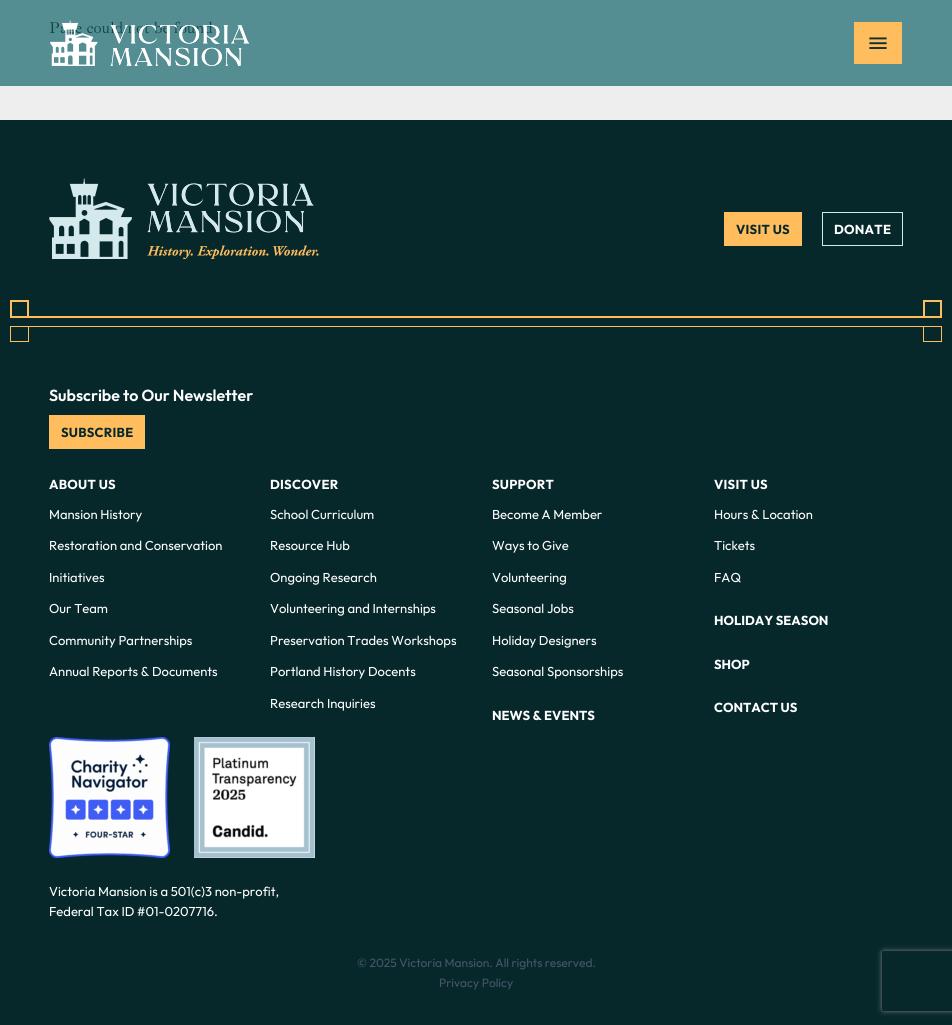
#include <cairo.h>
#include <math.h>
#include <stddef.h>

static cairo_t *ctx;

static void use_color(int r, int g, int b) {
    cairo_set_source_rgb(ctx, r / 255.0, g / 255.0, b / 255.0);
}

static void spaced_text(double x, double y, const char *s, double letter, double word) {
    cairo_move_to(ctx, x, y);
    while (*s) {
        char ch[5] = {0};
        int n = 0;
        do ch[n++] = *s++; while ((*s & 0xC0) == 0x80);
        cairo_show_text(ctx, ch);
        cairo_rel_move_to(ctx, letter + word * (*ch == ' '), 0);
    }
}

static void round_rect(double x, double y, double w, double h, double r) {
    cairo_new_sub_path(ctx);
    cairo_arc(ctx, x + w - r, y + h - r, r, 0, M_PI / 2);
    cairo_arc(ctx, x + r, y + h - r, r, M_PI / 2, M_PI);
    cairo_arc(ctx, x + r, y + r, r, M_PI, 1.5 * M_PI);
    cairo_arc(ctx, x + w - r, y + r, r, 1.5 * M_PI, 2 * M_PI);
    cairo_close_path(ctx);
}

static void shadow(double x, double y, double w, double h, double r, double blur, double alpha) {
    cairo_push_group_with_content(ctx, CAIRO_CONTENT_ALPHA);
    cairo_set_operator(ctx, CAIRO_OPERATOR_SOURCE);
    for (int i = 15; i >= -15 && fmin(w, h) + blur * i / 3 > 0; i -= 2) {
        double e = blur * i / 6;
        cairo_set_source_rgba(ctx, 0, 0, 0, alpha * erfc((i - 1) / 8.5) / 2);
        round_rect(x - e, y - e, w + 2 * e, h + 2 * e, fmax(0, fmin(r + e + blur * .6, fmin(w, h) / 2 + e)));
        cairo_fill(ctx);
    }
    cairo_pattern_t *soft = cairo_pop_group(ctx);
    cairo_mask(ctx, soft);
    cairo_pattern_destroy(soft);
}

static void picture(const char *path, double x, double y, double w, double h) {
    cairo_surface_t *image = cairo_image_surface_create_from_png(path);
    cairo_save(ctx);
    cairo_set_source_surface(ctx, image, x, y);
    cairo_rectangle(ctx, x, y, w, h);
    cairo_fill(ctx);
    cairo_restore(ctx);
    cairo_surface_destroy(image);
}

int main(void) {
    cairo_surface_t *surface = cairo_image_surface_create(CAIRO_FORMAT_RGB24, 952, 1025);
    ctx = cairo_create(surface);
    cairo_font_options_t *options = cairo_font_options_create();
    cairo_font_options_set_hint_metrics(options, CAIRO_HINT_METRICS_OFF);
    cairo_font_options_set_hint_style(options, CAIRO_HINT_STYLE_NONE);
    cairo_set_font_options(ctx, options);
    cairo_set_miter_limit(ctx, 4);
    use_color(238, 238, 238);
    cairo_paint(ctx);
    use_color(84, 141, 146);
    cairo_rectangle(ctx, 0, 0, 952, 86);
    cairo_fill(ctx);
    cairo_select_font_face(ctx, "Ibarra Real Nova", CAIRO_FONT_SLANT_NORMAL, CAIRO_FONT_WEIGHT_NORMAL);
    cairo_set_font_size(ctx, 16);
    use_color(13, 69, 75);
    cairo_move_to(ctx, 49, 33);
    cairo_show_text(ctx, "Page could not be found");
    picture("img1.png", 50, 20, 199, 46);
    use_color(255, 189, 93);
    cairo_rectangle(ctx, 854, 22, 48, 42);
    cairo_fill(ctx);
    picture("img2.png", 869, 37, 18, 12);
    use_color(7, 40, 43);
    cairo_rectangle(ctx, 0, 120, 952, 905);
    cairo_fill(ctx);
    picture("img3.png", 49, 178, 270, 81);
    use_color(255, 189, 93);
    cairo_rectangle(ctx, 724, 212, 78, 34);
    cairo_fill(ctx);
    cairo_select_font_face(ctx, "Outfit", CAIRO_FONT_SLANT_NORMAL, CAIRO_FONT_WEIGHT_BOLD);
    cairo_set_font_size(ctx, 13);
    use_color(7, 40, 43);
    spaced_text(736, 234, "VISIT US", 0.25, 0);
    cairo_rectangle(ctx, 822.5, 212.5, 80, 33);
    use_color(211, 233, 235);
    cairo_set_line_width(ctx, 1);
    cairo_stroke(ctx);
    use_color(255, 255, 255);
    spaced_text(834, 234, "DONATE", 0.25, 0);
    use_color(255, 189, 93);
    cairo_rectangle(ctx, 10, 316, 932, 2);
    cairo_fill(ctx);
    cairo_rectangle(ctx, 10, 300, 19, 2);
    cairo_fill(ctx);
    cairo_rectangle(ctx, 27, 300, 2, 16);
    cairo_fill(ctx);
    cairo_rectangle(ctx, 10, 300, 2, 16);
    cairo_fill(ctx);
    cairo_rectangle(ctx, 923, 300, 19, 2);
    cairo_fill(ctx);
    cairo_rectangle(ctx, 940, 300, 2, 16);
    cairo_fill(ctx);
    cairo_rectangle(ctx, 923, 300, 2, 16);
    cairo_fill(ctx);
    cairo_rectangle(ctx, 10, 326, 932, 1);
    cairo_fill(ctx);
    cairo_rectangle(ctx, 28, 326, 1, 16);
    cairo_fill(ctx);
    cairo_rectangle(ctx, 10, 341, 19, 1);
    cairo_fill(ctx);
    cairo_rectangle(ctx, 10, 326, 1, 16);
    cairo_fill(ctx);
    cairo_rectangle(ctx, 941, 326, 1, 16);
    cairo_fill(ctx);
    cairo_rectangle(ctx, 923, 341, 19, 1);
    cairo_fill(ctx);
    cairo_rectangle(ctx, 923, 326, 1, 16);
    cairo_fill(ctx);
    cairo_select_font_face(ctx, "Outfit SemiBold", CAIRO_FONT_SLANT_NORMAL, CAIRO_FONT_WEIGHT_NORMAL);
    cairo_set_font_size(ctx, 16);
    use_color(255, 255, 255);
    cairo_move_to(ctx, 49, 401);
    cairo_show_text(ctx, "Subscribe to Our Newsletter");
    use_color(255, 189, 93);
    cairo_rectangle(ctx, 49, 415, 96, 34);
    cairo_fill(ctx);
    cairo_select_font_face(ctx, "Outfit", CAIRO_FONT_SLANT_NORMAL, CAIRO_FONT_WEIGHT_BOLD);
    cairo_set_font_size(ctx, 13);
    use_color(7, 40, 43);
    spaced_text(61, 437, "SUBSCRIBE", 0.25, 0);
    use_color(255, 255, 255);
    spaced_text(49, 489, "ABOUT US", 0.25, 0);
    cairo_select_font_face(ctx, "Outfit", CAIRO_FONT_SLANT_NORMAL, CAIRO_FONT_WEIGHT_NORMAL);
    cairo_move_to(ctx, 49, 519);
    cairo_show_text(ctx, "Mansion History");
    cairo_move_to(ctx, 49, 550);
    cairo_show_text(ctx, "Restoration and Conservation");
    cairo_move_to(ctx, 49, 582);
    cairo_show_text(ctx, "Initiatives");
    cairo_move_to(ctx, 49, 613);
    cairo_show_text(ctx, "Our Team");
    cairo_move_to(ctx, 49, 645);
    cairo_show_text(ctx, "Community Partnerships");
    cairo_move_to(ctx, 49, 676);
    cairo_show_text(ctx, "Annual Reports & Documents");
    cairo_select_font_face(ctx, "Outfit", CAIRO_FONT_SLANT_NORMAL, CAIRO_FONT_WEIGHT_BOLD);
    spaced_text(270, 489, "DISCOVER", 0.25, 0);
    cairo_select_font_face(ctx, "Outfit", CAIRO_FONT_SLANT_NORMAL, CAIRO_FONT_WEIGHT_NORMAL);
    cairo_move_to(ctx, 270, 519);
    cairo_show_text(ctx, "School Curriculum");
    cairo_move_to(ctx, 270, 550);
    cairo_show_text(ctx, "Resource Hub");
    cairo_move_to(ctx, 270, 582);
    cairo_show_text(ctx, "Ongoing Research");
    cairo_move_to(ctx, 270, 613);
    cairo_show_text(ctx, "Volunteering and Internships");
    cairo_move_to(ctx, 270, 645);
    cairo_show_text(ctx, "Preservation Trades Workshops");
    cairo_move_to(ctx, 270, 676);
    cairo_show_text(ctx, "Portland History Docents");
    cairo_move_to(ctx, 270, 708);
    cairo_show_text(ctx, "Research Inquiries");
    cairo_select_font_face(ctx, "Outfit", CAIRO_FONT_SLANT_NORMAL, CAIRO_FONT_WEIGHT_BOLD);
    spaced_text(492, 489, "SUPPORT", 0.25, 0);
    cairo_select_font_face(ctx, "Outfit", CAIRO_FONT_SLANT_NORMAL, CAIRO_FONT_WEIGHT_NORMAL);
    cairo_move_to(ctx, 492, 519);
    cairo_show_text(ctx, "Become A Member");
    cairo_move_to(ctx, 492, 550);
    cairo_show_text(ctx, "Ways to Give");
    cairo_move_to(ctx, 492, 582);
    cairo_show_text(ctx, "Volunteering");
    cairo_move_to(ctx, 492, 613);
    cairo_show_text(ctx, "Seasonal Jobs");
    cairo_move_to(ctx, 492, 645);
    cairo_show_text(ctx, "Holiday Designers");
    cairo_move_to(ctx, 492, 676);
    cairo_show_text(ctx, "Seasonal Sponsorships");
    cairo_select_font_face(ctx, "Outfit", CAIRO_FONT_SLANT_NORMAL, CAIRO_FONT_WEIGHT_BOLD);
    cairo_move_to(ctx, 492, 720);
    cairo_show_text(ctx, "NEWS & EVENTS");
    spaced_text(714, 489, "VISIT US", 0.25, 0);
    cairo_select_font_face(ctx, "Outfit", CAIRO_FONT_SLANT_NORMAL, CAIRO_FONT_WEIGHT_NORMAL);
    cairo_move_to(ctx, 714, 519);
    cairo_show_text(ctx, "Hours & Location");
    cairo_move_to(ctx, 714, 550);
    cairo_show_text(ctx, "Tickets");
    cairo_move_to(ctx, 714, 582);
    cairo_show_text(ctx, "FAQ");
    cairo_select_font_face(ctx, "Outfit", CAIRO_FONT_SLANT_NORMAL, CAIRO_FONT_WEIGHT_BOLD);
    cairo_move_to(ctx, 714, 625);
    cairo_show_text(ctx, "HOLIDAY SEASON");
    cairo_move_to(ctx, 714, 669);
    cairo_show_text(ctx, "SHOP");
    cairo_move_to(ctx, 714, 712);
    cairo_show_text(ctx, "CONTACT US");
    picture("img4.png", 49, 737, 121, 121);
    picture("img5.png", 194, 737, 121, 121);
    cairo_select_font_face(ctx, "Outfit", CAIRO_FONT_SLANT_NORMAL, CAIRO_FONT_WEIGHT_NORMAL);
    cairo_move_to(ctx, 49, 896);
    cairo_show_text(ctx, "Victoria Mansion is a 501(c)3 non-profit,");
    cairo_move_to(ctx, 49, 916);
    cairo_show_text(ctx, "Federal Tax ID #01-0207716.");
    cairo_set_font_size(ctx, 12);
    use_color(71, 85, 105);
    cairo_move_to(ctx, 357, 967);
    cairo_show_text(ctx, "© 2025 Victoria Mansion. All rights reserved.");
    cairo_move_to(ctx, 439, 987);
    cairo_show_text(ctx, "Privacy Policy");
    cairo_save(ctx);
    cairo_set_fill_rule(ctx, CAIRO_FILL_RULE_EVEN_ODD);
    cairo_new_path(ctx);
    cairo_move_to(ctx, 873, 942);
    cairo_line_to(ctx, 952, 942);
    cairo_line_to(ctx, 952, 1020);
    cairo_line_to(ctx, 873, 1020);
    cairo_close_path(ctx);
    cairo_move_to(ctx, 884, 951);
    cairo_line_to(ctx, 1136, 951);
    cairo_curve_to(ctx, 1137, 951, 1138, 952, 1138, 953);
    cairo_line_to(ctx, 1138, 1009);
    cairo_curve_to(ctx, 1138, 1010, 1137, 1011, 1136, 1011);
    cairo_line_to(ctx, 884, 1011);
    cairo_curve_to(ctx, 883, 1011, 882, 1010, 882, 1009);
    cairo_line_to(ctx, 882, 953);
    cairo_curve_to(ctx, 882, 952, 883, 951, 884, 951);
    cairo_close_path(ctx);
    cairo_clip(ctx);
    use_color(128, 128, 128);
    shadow(882, 951, 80, 60, 2, 2.5, 1);
    cairo_restore(ctx);
    cairo_surface_write_to_png(surface, "result.png");
    cairo_font_options_destroy(options);
    cairo_destroy(ctx);
    cairo_surface_destroy(surface);
    return 0;
}
